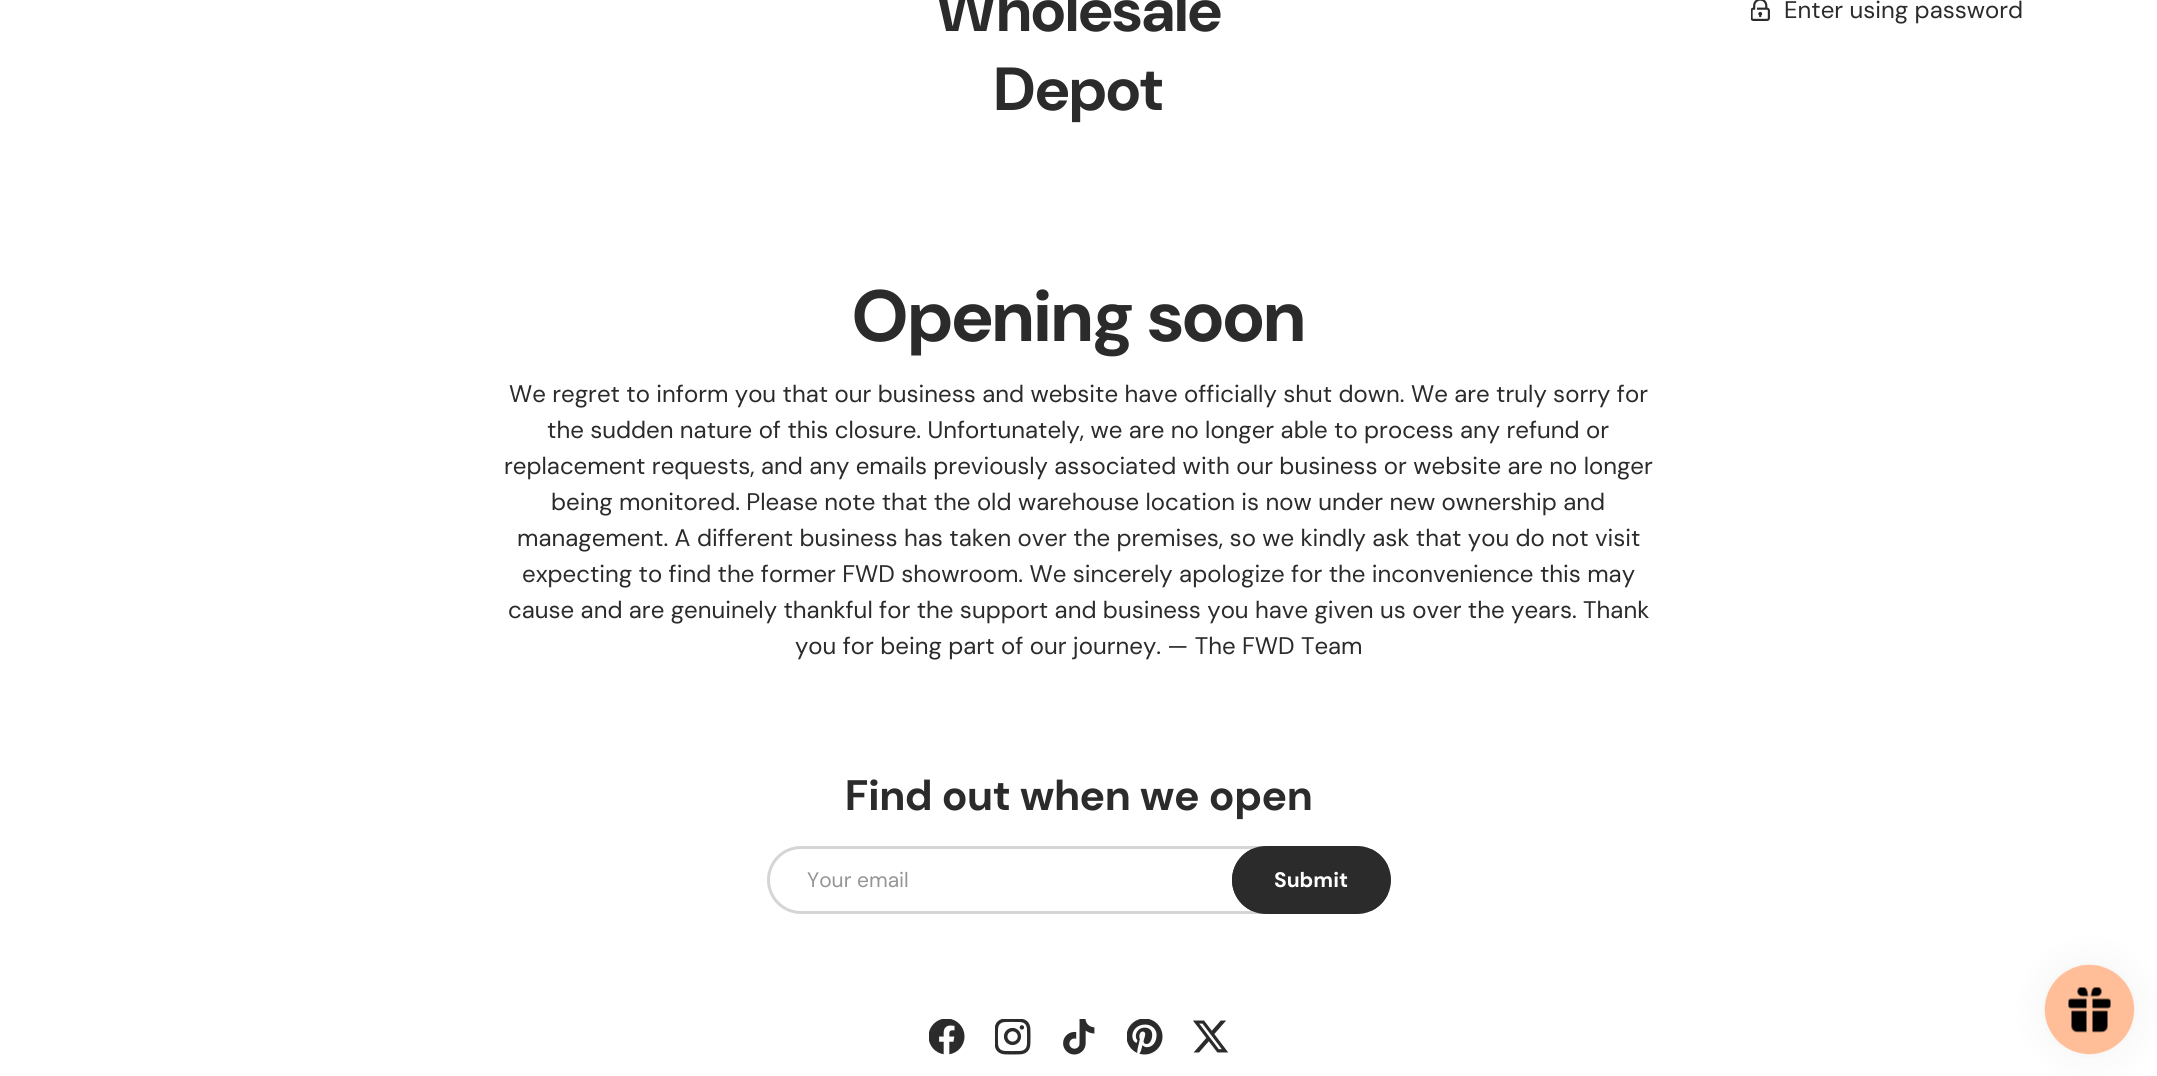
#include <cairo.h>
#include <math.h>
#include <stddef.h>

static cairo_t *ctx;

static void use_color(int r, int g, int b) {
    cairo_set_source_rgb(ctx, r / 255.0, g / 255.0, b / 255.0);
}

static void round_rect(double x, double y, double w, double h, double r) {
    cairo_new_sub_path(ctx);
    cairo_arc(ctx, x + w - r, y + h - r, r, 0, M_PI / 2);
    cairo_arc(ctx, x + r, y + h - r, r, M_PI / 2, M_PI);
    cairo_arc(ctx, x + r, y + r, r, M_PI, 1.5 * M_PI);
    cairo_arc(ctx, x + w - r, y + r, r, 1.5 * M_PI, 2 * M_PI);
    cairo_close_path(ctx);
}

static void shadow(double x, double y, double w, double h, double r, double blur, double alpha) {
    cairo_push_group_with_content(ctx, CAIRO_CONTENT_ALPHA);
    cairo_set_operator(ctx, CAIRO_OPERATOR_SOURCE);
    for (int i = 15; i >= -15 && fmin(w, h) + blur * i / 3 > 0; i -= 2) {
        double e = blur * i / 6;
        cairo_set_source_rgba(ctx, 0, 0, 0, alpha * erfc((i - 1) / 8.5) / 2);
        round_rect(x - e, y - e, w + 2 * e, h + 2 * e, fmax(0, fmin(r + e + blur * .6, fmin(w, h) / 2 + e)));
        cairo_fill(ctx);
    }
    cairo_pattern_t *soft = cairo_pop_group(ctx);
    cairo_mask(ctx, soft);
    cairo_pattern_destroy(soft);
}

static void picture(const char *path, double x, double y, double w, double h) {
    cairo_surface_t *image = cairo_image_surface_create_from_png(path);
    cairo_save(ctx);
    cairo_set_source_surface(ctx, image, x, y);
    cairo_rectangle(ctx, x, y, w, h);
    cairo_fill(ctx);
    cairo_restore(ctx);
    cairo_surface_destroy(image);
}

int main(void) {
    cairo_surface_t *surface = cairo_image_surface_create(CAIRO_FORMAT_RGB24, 2157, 1076);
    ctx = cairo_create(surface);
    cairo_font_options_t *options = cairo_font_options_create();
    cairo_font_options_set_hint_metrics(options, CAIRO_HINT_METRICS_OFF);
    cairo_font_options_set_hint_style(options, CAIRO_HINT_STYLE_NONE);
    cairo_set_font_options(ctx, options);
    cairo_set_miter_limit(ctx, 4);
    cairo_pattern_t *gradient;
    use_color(255, 255, 255);
    cairo_paint(ctx);
    cairo_select_font_face(ctx, "DM Sans", CAIRO_FONT_SLANT_NORMAL, CAIRO_FONT_WEIGHT_BOLD);
    cairo_set_font_size(ctx, 60.75);
    use_color(42, 43, 42);
    cairo_move_to(ctx, 936, 31);
    cairo_show_text(ctx, "Wholesale");
    cairo_move_to(ctx, 994, 110);
    cairo_show_text(ctx, "Depot");
    picture("img1.png", 1751, 0, 19, 21);
    cairo_select_font_face(ctx, "DM Sans", CAIRO_FONT_SLANT_NORMAL, CAIRO_FONT_WEIGHT_NORMAL);
    cairo_set_font_size(ctx, 24);
    cairo_move_to(ctx, 1784, 18);
    cairo_show_text(ctx, "Enter using password");
    cairo_select_font_face(ctx, "DM Sans", CAIRO_FONT_SLANT_NORMAL, CAIRO_FONT_WEIGHT_BOLD);
    cairo_set_font_size(ctx, 72.5);
    cairo_move_to(ctx, 852, 341);
    cairo_show_text(ctx, "Opening soon");
    cairo_select_font_face(ctx, "DM Sans", CAIRO_FONT_SLANT_NORMAL, CAIRO_FONT_WEIGHT_NORMAL);
    cairo_set_font_size(ctx, 24);
    cairo_move_to(ctx, 509, 402);
    cairo_show_text(ctx, "We regret to inform you that our business and website have officially shut down. We are truly sorry for");
    cairo_move_to(ctx, 547, 438);
    cairo_show_text(ctx, "the sudden nature of this closure. Unfortunately, we are no longer able to process any refund or");
    cairo_move_to(ctx, 504, 474);
    cairo_show_text(ctx, "replacement requests, and any emails previously associated with our business or website are no longer");
    cairo_move_to(ctx, 551, 510);
    cairo_show_text(ctx, "being monitored. Please note that the old warehouse location is now under new ownership and");
    cairo_move_to(ctx, 517, 546);
    cairo_show_text(ctx, "management. A different business has taken over the premises, so we kindly ask that you do not visit");
    cairo_move_to(ctx, 522, 582);
    cairo_show_text(ctx, "expecting to find the former FWD showroom. We sincerely apologize for the inconvenience this may");
    cairo_move_to(ctx, 508, 618);
    cairo_show_text(ctx, "cause and are genuinely thankful for the support and business you have given us over the years. Thank");
    cairo_move_to(ctx, 795, 654);
    cairo_show_text(ctx, "you for being part of our journey. — The FWD Team");
    cairo_select_font_face(ctx, "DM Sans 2", CAIRO_FONT_SLANT_NORMAL, CAIRO_FONT_WEIGHT_BOLD);
    cairo_set_font_size(ctx, 42.6);
    cairo_move_to(ctx, 845, 810);
    cairo_show_text(ctx, "Find out when we open");
    round_rect(768.5, 847.5, 621, 65, 32.5);
    use_color(212, 213, 212);
    cairo_set_line_width(ctx, 3);
    cairo_stroke(ctx);
    cairo_select_font_face(ctx, "DM Sans 2", CAIRO_FONT_SLANT_NORMAL, CAIRO_FONT_WEIGHT_NORMAL);
    cairo_set_font_size(ctx, 21);
    use_color(149, 149, 149);
    cairo_move_to(ctx, 807, 887);
    cairo_show_text(ctx, "Your email");
    cairo_save(ctx);
    round_rect(1232, 846, 159, 68, 34);
    cairo_clip(ctx);
    gradient = cairo_pattern_create_linear(935, 824, 1381, 935);
    cairo_pattern_add_color_stop_rgba(gradient, 0.6, 0.322, 0.325, 0.322, 1);
    cairo_pattern_add_color_stop_rgba(gradient, 0.6, 0.165, 0.169, 0.165, 1);
    cairo_pattern_add_color_stop_rgba(gradient, 1, 0.165, 0.169, 0.165, 1);
    cairo_set_source(ctx, gradient);
    cairo_pattern_destroy(gradient);
    cairo_rectangle(ctx, 1232, 849, 156, 62);
    cairo_fill(ctx);
    cairo_restore(ctx);
    round_rect(1233.5, 847.5, 156, 65, 32.5);
    use_color(42, 43, 42);
    cairo_stroke(ctx);
    cairo_select_font_face(ctx, "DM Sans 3", CAIRO_FONT_SLANT_NORMAL, CAIRO_FONT_WEIGHT_BOLD);
    use_color(255, 255, 255);
    cairo_move_to(ctx, 1274, 887);
    cairo_show_text(ctx, "Submit");
    picture("img2.png", 929, 1019, 36, 36);
    picture("img3.png", 995, 1019, 36, 36);
    picture("img4.png", 1063, 1019, 32, 36);
    picture("img5.png", 1127, 1019, 36, 36);
    picture("img6.png", 1193, 1020, 36, 33);
    use_color(0, 0, 0);
    shadow(2045, 965, 90, 90, 45, 19, 0.05);
    picture("img7.png", 2044, 964, 91, 91);
    cairo_surface_write_to_png(surface, "result.png");
    cairo_font_options_destroy(options);
    cairo_destroy(ctx);
    cairo_surface_destroy(surface);
    return 0;
}
